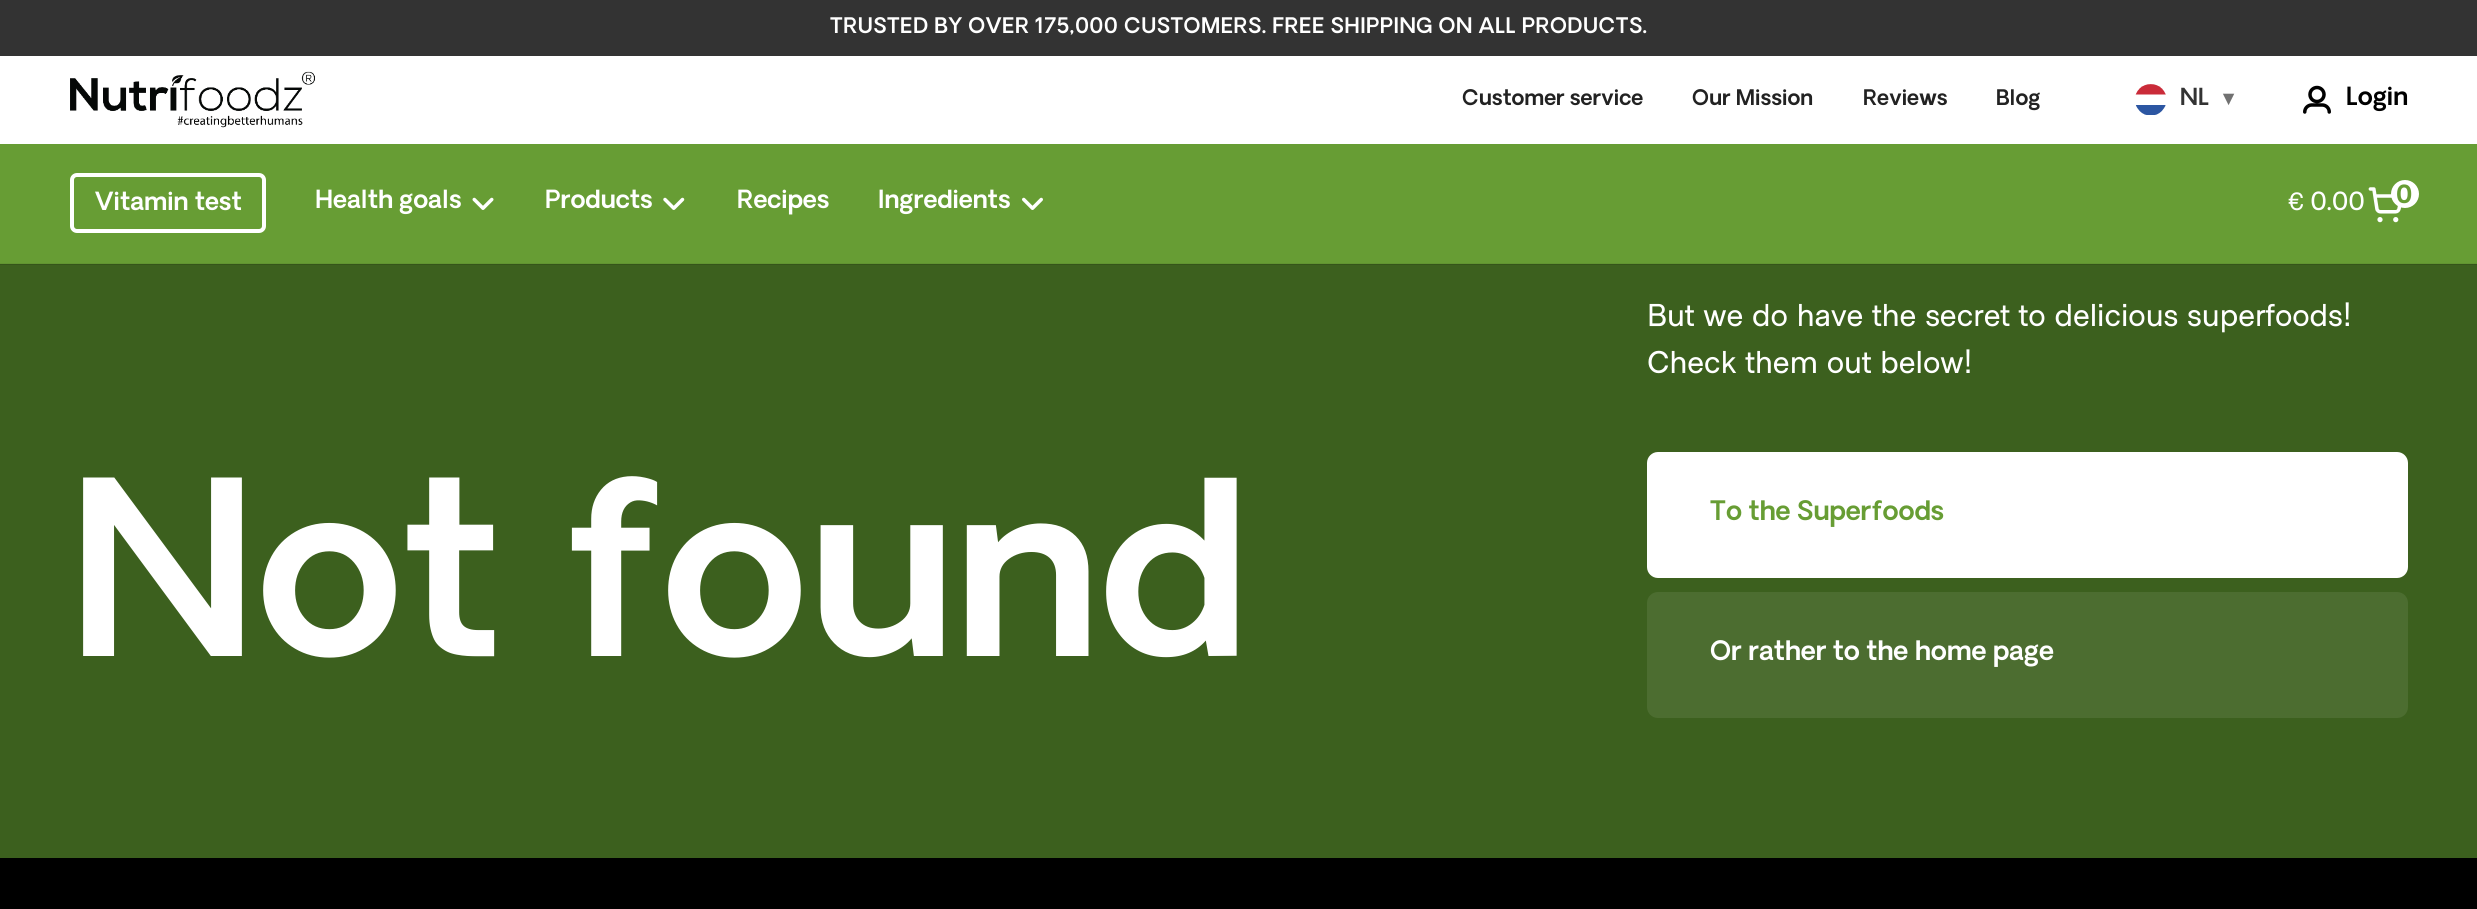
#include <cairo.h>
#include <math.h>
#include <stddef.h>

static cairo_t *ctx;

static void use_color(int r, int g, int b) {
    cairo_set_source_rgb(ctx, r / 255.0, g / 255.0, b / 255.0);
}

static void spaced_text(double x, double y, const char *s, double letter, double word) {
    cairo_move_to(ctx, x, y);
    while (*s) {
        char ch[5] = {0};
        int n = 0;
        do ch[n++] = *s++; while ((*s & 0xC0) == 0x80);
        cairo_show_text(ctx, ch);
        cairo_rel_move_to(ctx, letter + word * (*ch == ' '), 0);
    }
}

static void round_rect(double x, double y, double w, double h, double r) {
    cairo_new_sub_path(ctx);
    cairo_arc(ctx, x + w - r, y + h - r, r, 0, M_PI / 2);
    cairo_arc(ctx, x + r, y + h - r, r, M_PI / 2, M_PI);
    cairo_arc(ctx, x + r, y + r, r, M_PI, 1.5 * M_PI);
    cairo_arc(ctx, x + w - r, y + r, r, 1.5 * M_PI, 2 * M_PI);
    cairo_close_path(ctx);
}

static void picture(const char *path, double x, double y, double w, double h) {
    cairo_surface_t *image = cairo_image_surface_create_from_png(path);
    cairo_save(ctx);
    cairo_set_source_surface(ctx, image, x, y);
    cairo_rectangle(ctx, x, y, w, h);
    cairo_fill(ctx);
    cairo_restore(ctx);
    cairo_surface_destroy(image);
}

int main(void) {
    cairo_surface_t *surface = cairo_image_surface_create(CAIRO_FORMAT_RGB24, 2477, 909);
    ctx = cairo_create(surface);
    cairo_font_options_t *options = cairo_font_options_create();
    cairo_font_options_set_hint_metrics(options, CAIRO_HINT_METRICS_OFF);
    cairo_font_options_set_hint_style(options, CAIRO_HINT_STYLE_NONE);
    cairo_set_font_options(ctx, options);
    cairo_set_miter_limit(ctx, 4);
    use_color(0, 0, 0);
    cairo_paint(ctx);
    use_color(51, 51, 51);
    cairo_rectangle(ctx, 0, 0, 2477, 56);
    cairo_fill(ctx);
    cairo_select_font_face(ctx, "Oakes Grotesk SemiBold", CAIRO_FONT_SLANT_NORMAL, CAIRO_FONT_WEIGHT_NORMAL);
    cairo_set_font_size(ctx, 21);
    use_color(255, 255, 255);
    spaced_text(830, 33, "TRUSTED BY OVER 175,000 CUSTOMERS. FREE SHIPPING ON ALL PRODUCTS.", 0.42, 0);
    cairo_rectangle(ctx, 0, 56, 2477, 88);
    cairo_fill(ctx);
    picture("img1.png", 70, 71, 245, 57);
    use_color(34, 34, 34);
    cairo_move_to(ctx, 1462, 105);
    cairo_show_text(ctx, "Customer service");
    cairo_move_to(ctx, 1692, 105);
    cairo_show_text(ctx, "Our Mission");
    cairo_move_to(ctx, 1863, 105);
    cairo_show_text(ctx, "Reviews");
    cairo_move_to(ctx, 1996, 105);
    cairo_show_text(ctx, "Blog");
    picture("img2.png", 2135, 84, 31, 31);
    cairo_set_font_size(ctx, 23);
    use_color(51, 51, 51);
    cairo_move_to(ctx, 2180, 105);
    cairo_show_text(ctx, "NL");
    cairo_select_font_face(ctx, "DejaVu Sans", CAIRO_FONT_SLANT_NORMAL, CAIRO_FONT_WEIGHT_BOLD);
    cairo_set_font_size(ctx, 21);
    use_color(113, 113, 113);
    cairo_move_to(ctx, 2223, 105);
    cairo_show_text(ctx, "▾");
    picture("img3.png", 2303, 85, 28, 29);
    cairo_select_font_face(ctx, "Oakes Grotesk SemiBold", CAIRO_FONT_SLANT_NORMAL, CAIRO_FONT_WEIGHT_NORMAL);
    cairo_set_font_size(ctx, 24.5);
    use_color(0, 0, 0);
    cairo_move_to(ctx, 2346, 105);
    cairo_show_text(ctx, "Login");
    use_color(103, 157, 52);
    cairo_rectangle(ctx, 0, 144, 2477, 119);
    cairo_fill(ctx);
    use_color(97, 148, 49);
    cairo_rectangle(ctx, 0, 263, 2477, 1);
    cairo_fill(ctx);
    round_rect(72, 175, 192, 56, 5);
    use_color(255, 255, 255);
    cairo_set_line_width(ctx, 4);
    cairo_stroke(ctx);
    cairo_move_to(ctx, 95, 210);
    cairo_show_text(ctx, "Vitamin test");
    cairo_move_to(ctx, 315, 208);
    cairo_show_text(ctx, "Health goals");
    picture("img4.png", 472, 197, 22, 13);
    cairo_move_to(ctx, 545, 208);
    cairo_show_text(ctx, "Products");
    picture("img5.png", 663, 197, 22, 13);
    cairo_move_to(ctx, 737, 208);
    cairo_show_text(ctx, "Recipes");
    cairo_move_to(ctx, 878, 208);
    cairo_show_text(ctx, "Ingredients");
    picture("img6.png", 1022, 197, 21, 13);
    cairo_select_font_face(ctx, "Oakes Grotesk Medium", CAIRO_FONT_SLANT_NORMAL, CAIRO_FONT_WEIGHT_NORMAL);
    cairo_move_to(ctx, 2288, 210);
    cairo_show_text(ctx, "€ 0.00");
    picture("img7.png", 2368, 187, 34, 36);
    cairo_arc(ctx, 2405, 194, 14, 0, 2 * M_PI);
    cairo_fill(ctx);
    cairo_select_font_face(ctx, "Oakes Grotesk", CAIRO_FONT_SLANT_NORMAL, CAIRO_FONT_WEIGHT_BOLD);
    use_color(103, 157, 52);
    cairo_move_to(ctx, 2396, 203);
    cairo_show_text(ctx, "0");
    use_color(60, 96, 30);
    cairo_rectangle(ctx, 0, 265, 2477, 593);
    cairo_fill(ctx);
    use_color(53, 85, 26);
    cairo_rectangle(ctx, 0, 264, 2477, 1);
    cairo_fill(ctx);
    cairo_select_font_face(ctx, "Oakes Grotesk SemiBold", CAIRO_FONT_SLANT_NORMAL, CAIRO_FONT_WEIGHT_NORMAL);
    cairo_set_font_size(ctx, 238);
    use_color(255, 255, 255);
    cairo_move_to(ctx, 70, 656);
    cairo_show_text(ctx, "Not found");
    cairo_select_font_face(ctx, "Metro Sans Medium", CAIRO_FONT_SLANT_NORMAL, CAIRO_FONT_WEIGHT_NORMAL);
    cairo_set_font_size(ctx, 31.5);
    cairo_move_to(ctx, 1647, 326);
    cairo_show_text(ctx, "But we do have the secret to delicious superfoods!");
    cairo_move_to(ctx, 1647, 373);
    cairo_show_text(ctx, "Check them out below!");
    round_rect(1647, 452, 761, 126, 11);
    cairo_fill(ctx);
    cairo_select_font_face(ctx, "Oakes Grotesk SemiBold", CAIRO_FONT_SLANT_NORMAL, CAIRO_FONT_WEIGHT_NORMAL);
    cairo_set_font_size(ctx, 26.25);
    use_color(103, 157, 52);
    cairo_move_to(ctx, 1710, 520);
    cairo_show_text(ctx, "To the Superfoods");
    use_color(76, 109, 48);
    round_rect(1647, 592, 761, 126, 11);
    cairo_fill(ctx);
    use_color(255, 255, 255);
    cairo_move_to(ctx, 1710, 660);
    cairo_show_text(ctx, "Or rather to the home page");
    cairo_surface_write_to_png(surface, "result.png");
    cairo_font_options_destroy(options);
    cairo_destroy(ctx);
    cairo_surface_destroy(surface);
    return 0;
}
